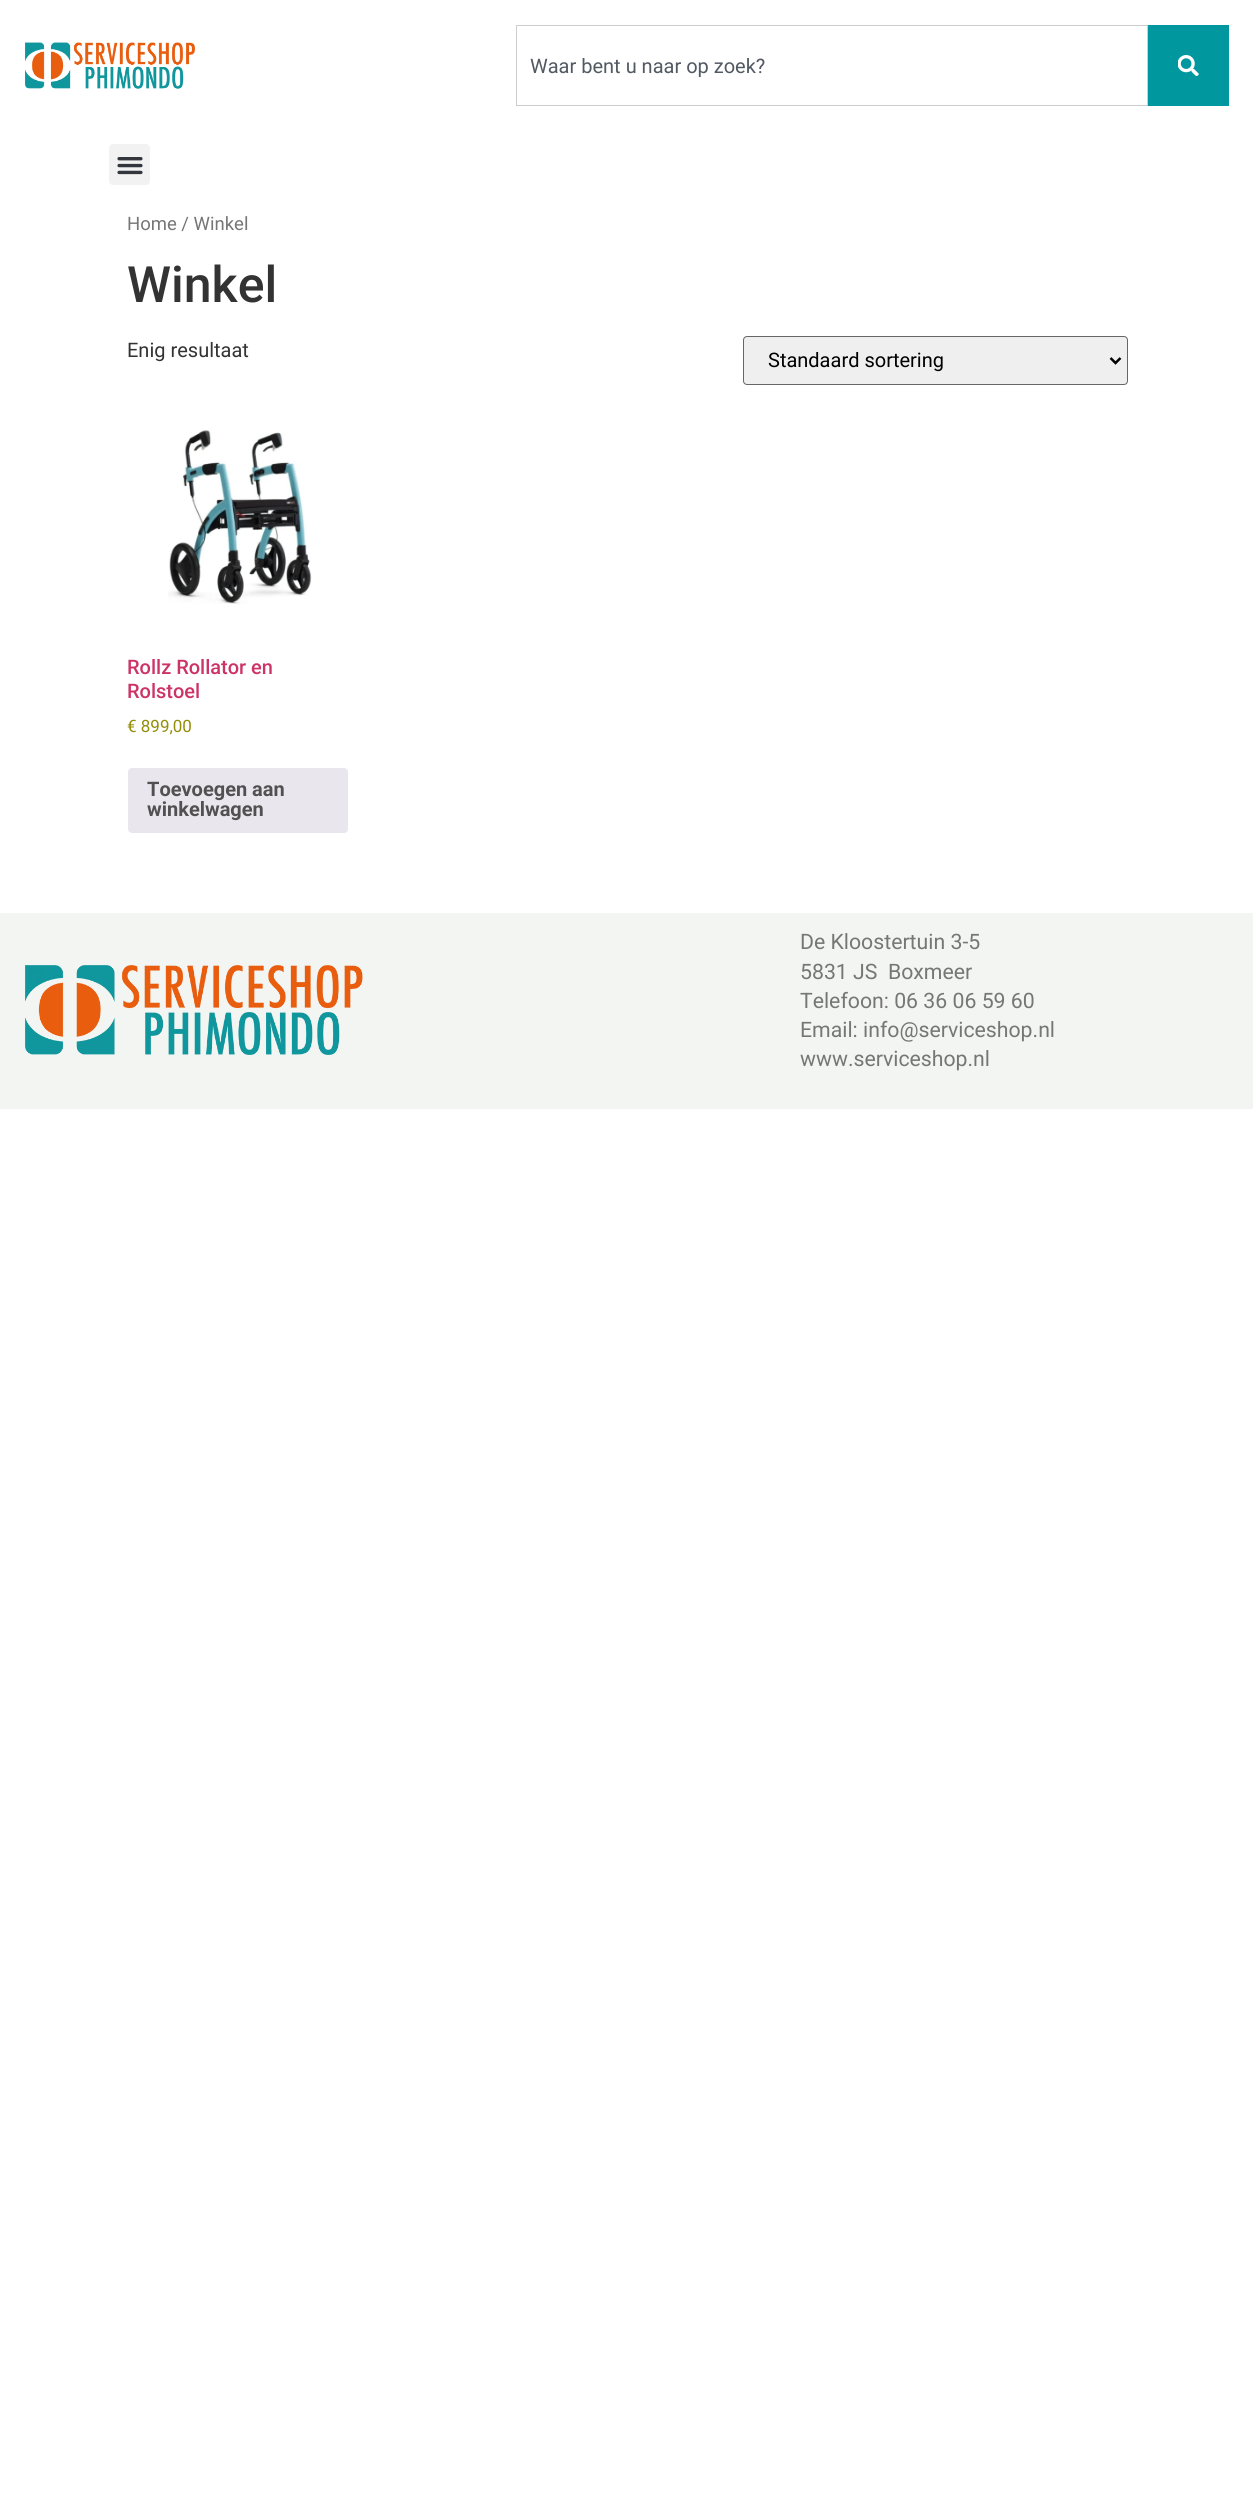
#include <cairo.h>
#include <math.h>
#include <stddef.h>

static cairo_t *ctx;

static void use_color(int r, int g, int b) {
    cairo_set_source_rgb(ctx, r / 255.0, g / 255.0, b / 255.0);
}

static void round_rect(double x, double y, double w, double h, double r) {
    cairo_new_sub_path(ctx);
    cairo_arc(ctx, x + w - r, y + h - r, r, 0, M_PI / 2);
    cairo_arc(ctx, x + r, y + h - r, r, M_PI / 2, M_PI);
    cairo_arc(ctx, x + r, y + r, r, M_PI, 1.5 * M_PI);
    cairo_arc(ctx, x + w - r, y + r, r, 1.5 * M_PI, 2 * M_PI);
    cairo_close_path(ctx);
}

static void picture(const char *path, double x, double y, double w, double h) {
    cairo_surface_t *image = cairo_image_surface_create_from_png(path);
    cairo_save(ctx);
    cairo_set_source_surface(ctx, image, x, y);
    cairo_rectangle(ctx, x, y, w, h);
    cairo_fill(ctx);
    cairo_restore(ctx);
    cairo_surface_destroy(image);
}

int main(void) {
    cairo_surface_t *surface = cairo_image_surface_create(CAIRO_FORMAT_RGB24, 1253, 2501);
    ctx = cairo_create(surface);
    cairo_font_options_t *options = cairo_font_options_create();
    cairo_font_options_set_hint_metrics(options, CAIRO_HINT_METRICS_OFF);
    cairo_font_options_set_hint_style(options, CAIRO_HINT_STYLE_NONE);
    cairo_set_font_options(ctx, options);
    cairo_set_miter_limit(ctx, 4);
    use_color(255, 255, 255);
    cairo_paint(ctx);
    picture("img1.png", 25, 42, 170, 47);
    cairo_rectangle(ctx, 516.5, 25.5, 631, 80);
    use_color(205, 205, 205);
    cairo_set_line_width(ctx, 1);
    cairo_stroke(ctx);
    cairo_select_font_face(ctx, "Roboto", CAIRO_FONT_SLANT_NORMAL, CAIRO_FONT_WEIGHT_NORMAL);
    cairo_set_font_size(ctx, 20);
    use_color(81, 89, 98);
    cairo_move_to(ctx, 530, 73);
    cairo_show_text(ctx, "Waar bent u naar op zoek?");
    use_color(0, 151, 159);
    cairo_rectangle(ctx, 1148, 25, 81, 81);
    cairo_fill(ctx);
    picture("img2.png", 1178, 55, 21, 21);
    use_color(242, 242, 242);
    round_rect(109, 144, 41, 41, 4);
    cairo_fill(ctx);
    picture("img3.png", 117, 157, 26, 18);
    cairo_set_font_size(ctx, 18.5);
    use_color(118, 118, 118);
    cairo_move_to(ctx, 127, 230);
    cairo_show_text(ctx, "Home / Winkel");
    cairo_select_font_face(ctx, "Roboto Medium", CAIRO_FONT_SLANT_NORMAL, CAIRO_FONT_WEIGHT_NORMAL);
    cairo_set_font_size(ctx, 50);
    use_color(51, 51, 51);
    cairo_move_to(ctx, 127, 302);
    cairo_show_text(ctx, "Winkel");
    cairo_select_font_face(ctx, "Roboto", CAIRO_FONT_SLANT_NORMAL, CAIRO_FONT_WEIGHT_NORMAL);
    cairo_set_font_size(ctx, 20);
    cairo_move_to(ctx, 127, 357);
    cairo_show_text(ctx, "Enig resultaat");
    use_color(239, 239, 239);
    round_rect(743.5, 336.5, 384, 48, 3.5);
    cairo_fill_preserve(ctx);
    use_color(102, 102, 102);
    cairo_stroke(ctx);
    cairo_new_path(ctx);
    cairo_move_to(ctx, 1110.5, 358);
    cairo_line_to(ctx, 1115.5, 363);
    cairo_line_to(ctx, 1120.5, 358);
    use_color(0, 0, 0);
    cairo_set_line_width(ctx, 2.5);
    cairo_stroke(ctx);
    cairo_move_to(ctx, 768, 367);
    cairo_show_text(ctx, "Standaard sortering");
    picture("img4.png", 168, 430, 144, 174);
    cairo_select_font_face(ctx, "Roboto Medium", CAIRO_FONT_SLANT_NORMAL, CAIRO_FONT_WEIGHT_NORMAL);
    use_color(204, 51, 102);
    cairo_move_to(ctx, 127, 674);
    cairo_show_text(ctx, "Rollz Rollator en");
    cairo_move_to(ctx, 127, 698);
    cairo_show_text(ctx, "Rolstoel");
    cairo_select_font_face(ctx, "Roboto", CAIRO_FONT_SLANT_NORMAL, CAIRO_FONT_WEIGHT_NORMAL);
    cairo_set_font_size(ctx, 17);
    use_color(149, 142, 9);
    cairo_move_to(ctx, 127, 732);
    cairo_show_text(ctx, "€ 899,00");
    use_color(233, 230, 237);
    round_rect(128, 768, 220, 65, 4);
    cairo_fill(ctx);
    cairo_select_font_face(ctx, "Roboto", CAIRO_FONT_SLANT_NORMAL, CAIRO_FONT_WEIGHT_BOLD);
    cairo_set_font_size(ctx, 20);
    use_color(81, 81, 81);
    cairo_move_to(ctx, 147, 796);
    cairo_show_text(ctx, "Toevoegen aan");
    cairo_move_to(ctx, 147, 816);
    cairo_show_text(ctx, "winkelwagen");
    use_color(243, 245, 242);
    cairo_rectangle(ctx, 0, 913, 1253, 196);
    cairo_fill(ctx);
    picture("img5.png", 25, 965, 338, 90);
    cairo_select_font_face(ctx, "Roboto", CAIRO_FONT_SLANT_NORMAL, CAIRO_FONT_WEIGHT_NORMAL);
    cairo_set_font_size(ctx, 21.25);
    use_color(118, 118, 118);
    cairo_move_to(ctx, 800, 949);
    cairo_show_text(ctx, "De Kloostertuin 3-5");
    cairo_move_to(ctx, 800, 979);
    cairo_show_text(ctx, "5831 JS  Boxmeer");
    cairo_move_to(ctx, 800, 1008);
    cairo_show_text(ctx, "Telefoon: 06 36 06 59 60");
    cairo_move_to(ctx, 800, 1037);
    cairo_show_text(ctx, "Email: info@serviceshop.nl");
    cairo_move_to(ctx, 800, 1066);
    cairo_show_text(ctx, "www.serviceshop.nl");
    cairo_surface_write_to_png(surface, "result.png");
    cairo_font_options_destroy(options);
    cairo_destroy(ctx);
    cairo_surface_destroy(surface);
    return 0;
}
